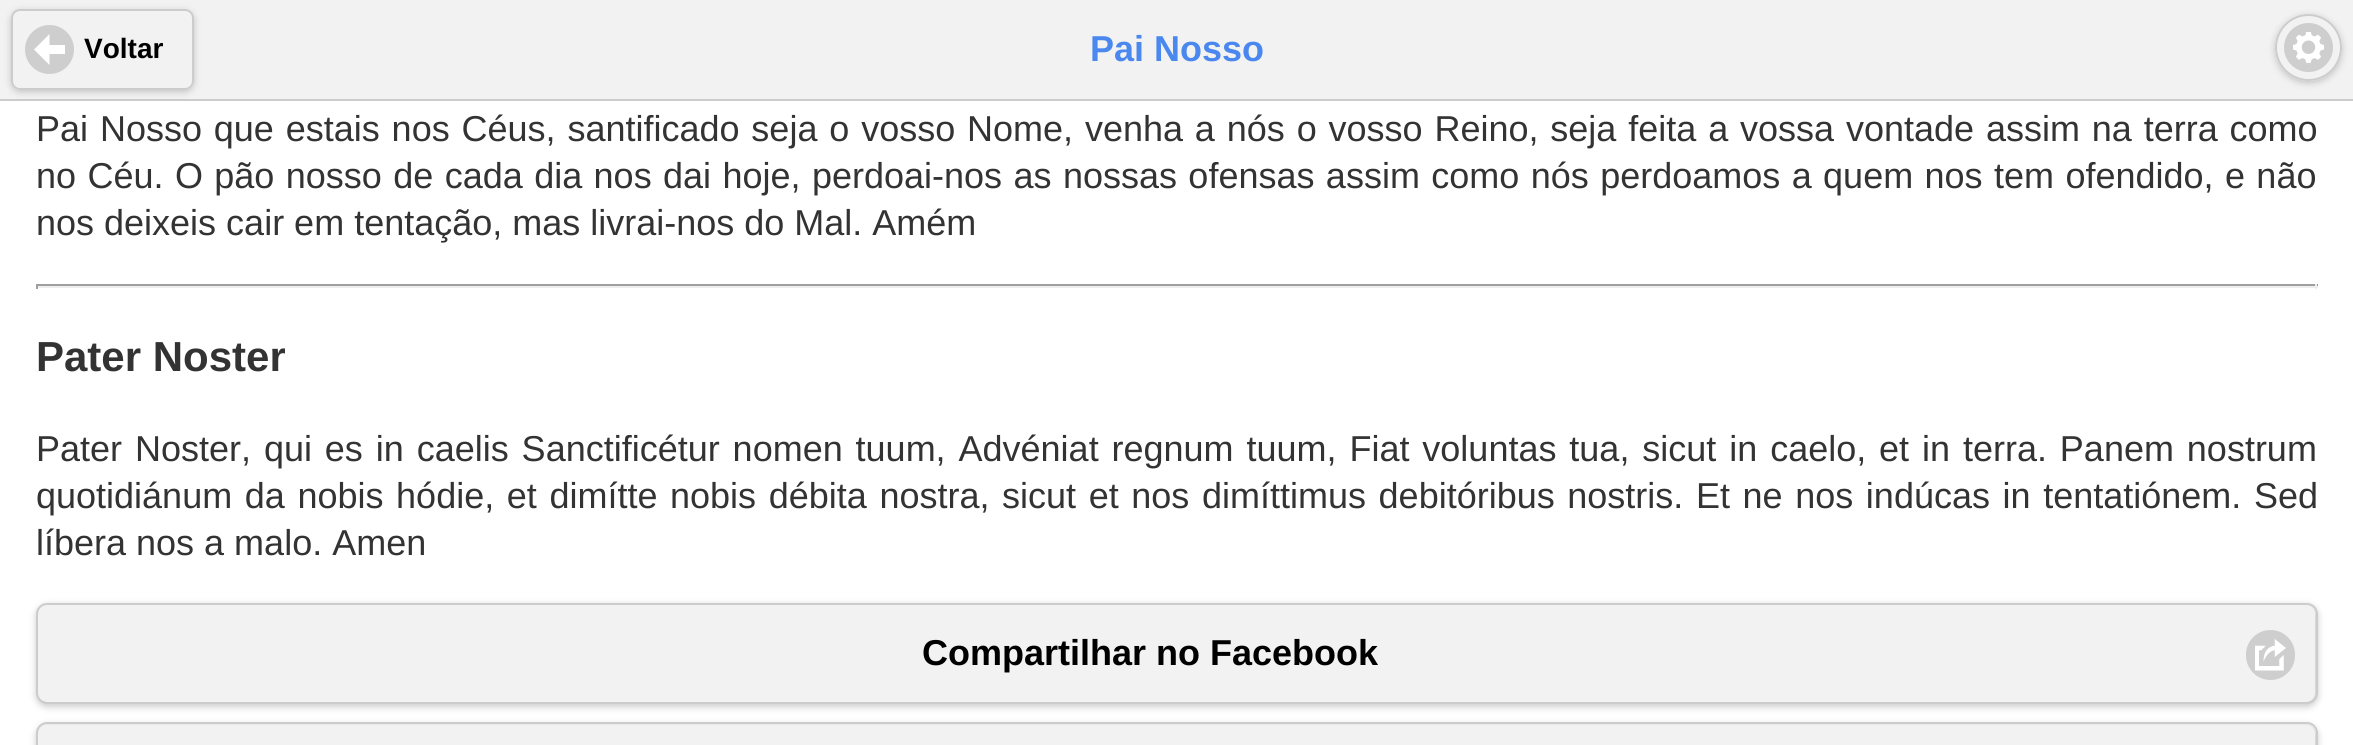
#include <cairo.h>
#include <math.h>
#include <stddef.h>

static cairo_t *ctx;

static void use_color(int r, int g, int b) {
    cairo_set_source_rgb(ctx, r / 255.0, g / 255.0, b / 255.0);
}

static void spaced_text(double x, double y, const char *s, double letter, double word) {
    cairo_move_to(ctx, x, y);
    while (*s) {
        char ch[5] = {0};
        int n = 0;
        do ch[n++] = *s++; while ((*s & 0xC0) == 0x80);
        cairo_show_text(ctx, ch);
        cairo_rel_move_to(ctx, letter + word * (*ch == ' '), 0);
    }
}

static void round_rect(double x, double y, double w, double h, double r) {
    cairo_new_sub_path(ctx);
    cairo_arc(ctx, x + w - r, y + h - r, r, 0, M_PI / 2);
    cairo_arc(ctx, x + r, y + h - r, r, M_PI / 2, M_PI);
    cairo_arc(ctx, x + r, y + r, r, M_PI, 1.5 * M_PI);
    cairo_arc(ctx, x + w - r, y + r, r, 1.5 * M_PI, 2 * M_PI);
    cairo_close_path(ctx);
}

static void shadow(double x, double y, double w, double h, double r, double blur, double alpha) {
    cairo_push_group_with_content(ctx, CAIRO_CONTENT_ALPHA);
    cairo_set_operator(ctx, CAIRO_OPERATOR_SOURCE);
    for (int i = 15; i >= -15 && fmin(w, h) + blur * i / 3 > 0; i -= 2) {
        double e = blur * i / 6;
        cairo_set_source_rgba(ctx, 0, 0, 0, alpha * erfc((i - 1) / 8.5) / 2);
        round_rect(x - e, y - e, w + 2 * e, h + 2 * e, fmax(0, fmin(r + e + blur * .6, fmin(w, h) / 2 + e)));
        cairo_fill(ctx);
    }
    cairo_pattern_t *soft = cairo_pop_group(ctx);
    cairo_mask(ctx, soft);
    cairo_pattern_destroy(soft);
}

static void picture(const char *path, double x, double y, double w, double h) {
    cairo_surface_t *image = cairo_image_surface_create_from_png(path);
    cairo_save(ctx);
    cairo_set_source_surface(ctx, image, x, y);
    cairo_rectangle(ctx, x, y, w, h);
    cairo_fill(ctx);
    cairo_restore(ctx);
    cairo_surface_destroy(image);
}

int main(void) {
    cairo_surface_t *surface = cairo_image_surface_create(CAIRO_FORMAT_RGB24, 2353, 745);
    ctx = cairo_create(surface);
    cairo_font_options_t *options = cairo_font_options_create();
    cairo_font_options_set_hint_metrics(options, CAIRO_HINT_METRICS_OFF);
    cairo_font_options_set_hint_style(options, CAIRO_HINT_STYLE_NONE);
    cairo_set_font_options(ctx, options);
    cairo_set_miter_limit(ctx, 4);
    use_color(255, 255, 255);
    cairo_paint(ctx);
    use_color(242, 242, 242);
    cairo_rectangle(ctx, 0, 0, 2353, 99);
    cairo_fill(ctx);
    use_color(204, 204, 204);
    cairo_rectangle(ctx, 0, 99, 2353, 2);
    cairo_fill(ctx);
    cairo_save(ctx);
    cairo_set_fill_rule(ctx, CAIRO_FILL_RULE_EVEN_ODD);
    cairo_new_path(ctx);
    cairo_move_to(ctx, 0, 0);
    cairo_line_to(ctx, 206, 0);
    cairo_line_to(ctx, 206, 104);
    cairo_line_to(ctx, 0, 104);
    cairo_close_path(ctx);
    cairo_move_to(ctx, 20, 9);
    cairo_line_to(ctx, 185, 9);
    cairo_curve_to(ctx, 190, 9, 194, 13, 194, 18);
    cairo_line_to(ctx, 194, 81);
    cairo_curve_to(ctx, 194, 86, 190, 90, 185, 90);
    cairo_line_to(ctx, 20, 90);
    cairo_curve_to(ctx, 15, 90, 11, 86, 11, 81);
    cairo_line_to(ctx, 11, 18);
    cairo_curve_to(ctx, 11, 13, 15, 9, 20, 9);
    cairo_close_path(ctx);
    cairo_clip(ctx);
    use_color(0, 0, 0);
    shadow(11, 11, 183, 81, 9, 3.5, 0.2);
    cairo_restore(ctx);
    round_rect(12, 10, 181, 79, 8);
    cairo_stroke(ctx);
    use_color(206, 206, 206);
    cairo_arc(ctx, 49.5, 49.5, 24.5, 0, 2 * M_PI);
    cairo_fill(ctx);
    use_color(255, 255, 255);
    cairo_new_path(ctx);
    cairo_move_to(ctx, 49.5, 45);
    cairo_line_to(ctx, 49.5, 34);
    cairo_line_to(ctx, 34, 49.5);
    cairo_line_to(ctx, 49.5, 65);
    cairo_line_to(ctx, 49.5, 54);
    cairo_line_to(ctx, 65, 54);
    cairo_line_to(ctx, 65, 45);
    cairo_close_path(ctx);
    cairo_fill(ctx);
    cairo_select_font_face(ctx, "Liberation Sans", CAIRO_FONT_SLANT_NORMAL, CAIRO_FONT_WEIGHT_BOLD);
    cairo_set_font_size(ctx, 28);
    use_color(0, 0, 0);
    cairo_move_to(ctx, 84, 58);
    cairo_show_text(ctx, "Voltar");
    cairo_set_font_size(ctx, 36);
    use_color(74, 135, 238);
    cairo_move_to(ctx, 1090, 61);
    cairo_show_text(ctx, "Pai Nosso");
    cairo_save(ctx);
    cairo_set_fill_rule(ctx, CAIRO_FILL_RULE_EVEN_ODD);
    cairo_new_path(ctx);
    cairo_move_to(ctx, 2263, 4);
    cairo_line_to(ctx, 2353, 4);
    cairo_line_to(ctx, 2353, 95);
    cairo_line_to(ctx, 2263, 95);
    cairo_close_path(ctx);
    cairo_move_to(ctx, 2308.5, 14);
    cairo_curve_to(ctx, 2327, 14, 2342, 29, 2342, 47.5);
    cairo_curve_to(ctx, 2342, 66, 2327, 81, 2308.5, 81);
    cairo_curve_to(ctx, 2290, 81, 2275, 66, 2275, 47.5);
    cairo_curve_to(ctx, 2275, 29, 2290, 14, 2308.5, 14);
    cairo_close_path(ctx);
    cairo_clip(ctx);
    use_color(0, 0, 0);
    shadow(2275, 16, 67, 67, 33.5, 3.5, 0.2);
    cairo_restore(ctx);
    cairo_arc(ctx, 2308.5, 47.5, 32.5, 0, 2 * M_PI);
    use_color(204, 204, 204);
    cairo_stroke(ctx);
    use_color(206, 206, 206);
    cairo_arc(ctx, 2308.5, 47.5, 24.5, 0, 2 * M_PI);
    cairo_fill(ctx);
    picture("img1.png", 2293, 32, 31, 31);
    cairo_select_font_face(ctx, "Liberation Sans", CAIRO_FONT_SLANT_NORMAL, CAIRO_FONT_WEIGHT_NORMAL);
    use_color(51, 51, 51);
    spaced_text(36, 141, "Pai Nosso que estais nos Céus, santificado seja o vosso Nome, venha a nós o vosso Reino, seja feita a vossa vontade assim na terra como", 0, 1.85);
    spaced_text(36, 188, "no Céu. O pão nosso de cada dia nos dai hoje, perdoai-nos as nossas ofensas assim como nós perdoamos a quem nos tem ofendido, e não", 0, 1.4);
    cairo_move_to(ctx, 36, 235);
    cairo_show_text(ctx, "nos deixeis cair em tentação, mas livrai-nos do Mal. Amém");
    use_color(159, 159, 159);
    cairo_rectangle(ctx, 36, 284, 2282, 2);
    cairo_fill(ctx);
    use_color(238, 238, 238);
    cairo_rectangle(ctx, 2315, 284, 2, 5);
    cairo_fill(ctx);
    cairo_rectangle(ctx, 36, 286, 2282, 2);
    cairo_fill(ctx);
    use_color(159, 159, 159);
    cairo_rectangle(ctx, 36, 284, 2, 5);
    cairo_fill(ctx);
    cairo_select_font_face(ctx, "Liberation Sans", CAIRO_FONT_SLANT_NORMAL, CAIRO_FONT_WEIGHT_BOLD);
    cairo_set_font_size(ctx, 42);
    use_color(51, 51, 51);
    cairo_move_to(ctx, 36, 371);
    cairo_show_text(ctx, "Pater Noster");
    cairo_select_font_face(ctx, "Liberation Sans", CAIRO_FONT_SLANT_NORMAL, CAIRO_FONT_WEIGHT_NORMAL);
    cairo_set_font_size(ctx, 36);
    spaced_text(36, 461, "Pater Noster, qui es in caelis Sanctificétur nomen tuum, Advéniat regnum tuum, Fiat voluntas tua, sicut in caelo, et in terra. Panem nostrum", 0, 2.9);
    spaced_text(36, 508, "quotidiánum da nobis hódie, et dimítte nobis débita nostra, sicut et nos dimíttimus debitóribus nostris. Et ne nos indúcas in tentatiónem. Sed", 0, 2.6);
    cairo_move_to(ctx, 36, 555);
    cairo_show_text(ctx, "líbera nos a malo. Amen");
    use_color(0, 0, 0);
    shadow(36, 605, 2282, 102, 11, 3.5, 0.2);
    use_color(242, 242, 242);
    round_rect(38, 605, 2277, 97, 9);
    cairo_fill(ctx);
    round_rect(37, 604, 2280, 99, 10);
    use_color(204, 204, 204);
    cairo_stroke(ctx);
    cairo_select_font_face(ctx, "Liberation Sans", CAIRO_FONT_SLANT_NORMAL, CAIRO_FONT_WEIGHT_BOLD);
    use_color(0, 0, 0);
    cairo_move_to(ctx, 922, 665);
    cairo_show_text(ctx, "Compartilhar no Facebook");
    use_color(206, 206, 206);
    round_rect(2246, 630, 49, 50, 24.5);
    cairo_fill(ctx);
    picture("img2.png", 2255, 639, 31, 32);
    use_color(0, 0, 0);
    shadow(36, 725, 2282, 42, 11, 3.5, 0.2);
    use_color(242, 242, 242);
    round_rect(38, 725, 2277, 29, 9);
    cairo_fill(ctx);
    round_rect(37, 723, 2280, 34, 10);
    use_color(204, 204, 204);
    cairo_stroke(ctx);
    cairo_surface_write_to_png(surface, "result.png");
    cairo_font_options_destroy(options);
    cairo_destroy(ctx);
    cairo_surface_destroy(surface);
    return 0;
}
